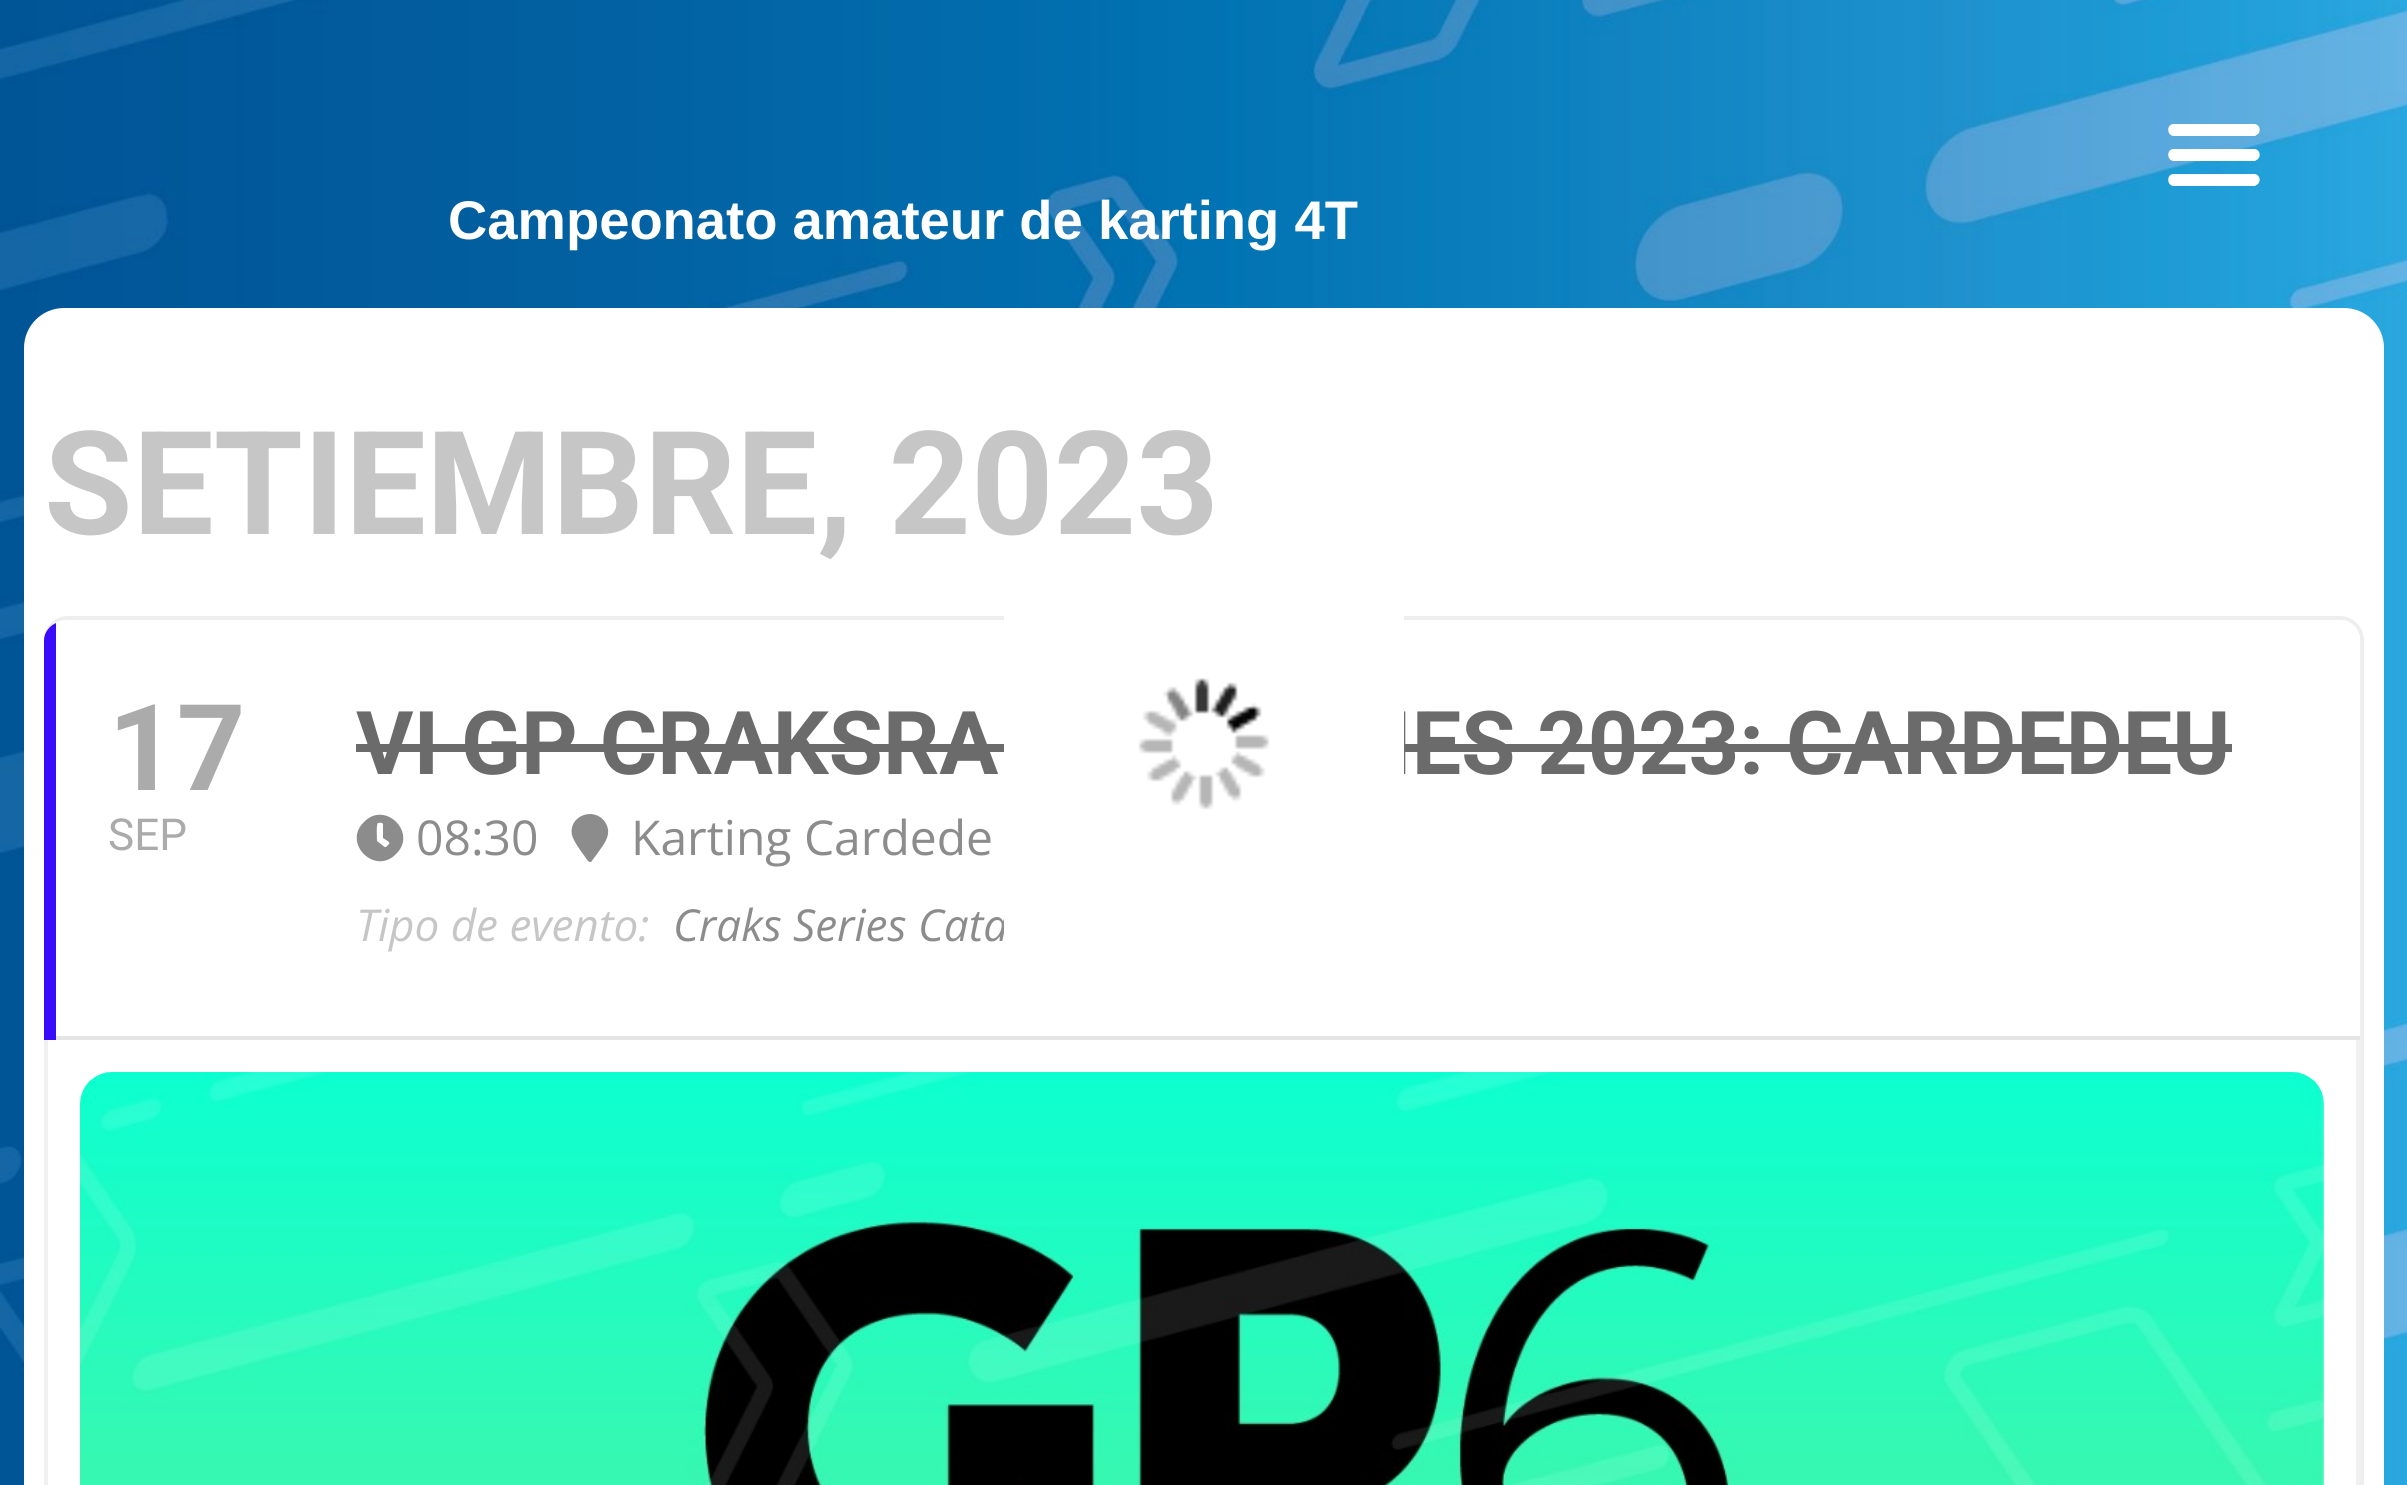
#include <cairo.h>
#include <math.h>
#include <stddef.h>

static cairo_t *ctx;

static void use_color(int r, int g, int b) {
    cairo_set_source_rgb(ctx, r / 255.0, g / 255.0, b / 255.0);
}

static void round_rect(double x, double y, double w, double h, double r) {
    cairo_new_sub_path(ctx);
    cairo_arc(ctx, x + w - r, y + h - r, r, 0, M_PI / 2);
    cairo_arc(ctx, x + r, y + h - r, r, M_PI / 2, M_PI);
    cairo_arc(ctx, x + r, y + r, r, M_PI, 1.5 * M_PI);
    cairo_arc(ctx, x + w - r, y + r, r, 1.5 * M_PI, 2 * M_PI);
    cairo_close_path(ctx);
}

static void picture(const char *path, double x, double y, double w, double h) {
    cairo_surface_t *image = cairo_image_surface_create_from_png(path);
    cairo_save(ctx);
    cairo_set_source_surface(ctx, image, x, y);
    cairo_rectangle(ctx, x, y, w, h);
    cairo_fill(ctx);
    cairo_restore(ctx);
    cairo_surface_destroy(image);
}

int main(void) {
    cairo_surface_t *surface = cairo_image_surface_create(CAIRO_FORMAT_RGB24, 2407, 1485);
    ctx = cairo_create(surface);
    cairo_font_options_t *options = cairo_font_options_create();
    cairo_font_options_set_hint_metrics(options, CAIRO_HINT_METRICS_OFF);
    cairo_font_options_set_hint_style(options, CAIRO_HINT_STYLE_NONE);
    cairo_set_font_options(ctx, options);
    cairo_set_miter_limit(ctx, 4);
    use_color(255, 255, 255);
    cairo_paint(ctx);
    picture("img1.png", 0, 0, 2407, 1485);
    use_color(255, 255, 255);
    cairo_new_path(ctx);
    cairo_move_to(ctx, 2174, 136);
    cairo_line_to(ctx, 2255, 136);
    cairo_line_to(ctx, 2258, 134);
    cairo_curve_to(ctx, 2261, 131, 2260, 125, 2255, 124);
    cairo_line_to(ctx, 2173, 124);
    cairo_curve_to(ctx, 2166, 125, 2167, 136, 2174, 136);
    cairo_close_path(ctx);
    cairo_move_to(ctx, 2174, 161);
    cairo_line_to(ctx, 2255, 161);
    cairo_line_to(ctx, 2258, 159);
    cairo_curve_to(ctx, 2261, 156, 2260, 150, 2255, 149);
    cairo_line_to(ctx, 2173, 149);
    cairo_curve_to(ctx, 2166, 150, 2167, 161, 2174, 161);
    cairo_close_path(ctx);
    cairo_move_to(ctx, 2174, 186);
    cairo_line_to(ctx, 2255, 186);
    cairo_line_to(ctx, 2258, 184);
    cairo_curve_to(ctx, 2261, 181, 2260, 175, 2255, 174);
    cairo_line_to(ctx, 2173, 174);
    cairo_curve_to(ctx, 2166, 175, 2167, 186, 2174, 186);
    cairo_close_path(ctx);
    cairo_fill(ctx);
    cairo_select_font_face(ctx, "Liberation Sans", CAIRO_FONT_SLANT_NORMAL, CAIRO_FONT_WEIGHT_BOLD);
    cairo_set_font_size(ctx, 54.4);
    cairo_move_to(ctx, 448, 239);
    cairo_show_text(ctx, "Campeonato amateur de karting 4T");
    round_rect(24, 308, 2360, 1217, 40);
    cairo_fill(ctx);
    cairo_select_font_face(ctx, "Roboto", CAIRO_FONT_SLANT_NORMAL, CAIRO_FONT_WEIGHT_BOLD);
    cairo_set_font_size(ctx, 144);
    use_color(198, 198, 198);
    cairo_move_to(ctx, 44, 534);
    cairo_show_text(ctx, "SETIEMBRE, 2023");
    use_color(239, 238, 238);
    cairo_set_fill_rule(ctx, CAIRO_FILL_RULE_EVEN_ODD);
    cairo_new_path(ctx);
    cairo_move_to(ctx, 68, 616);
    cairo_line_to(ctx, 2340, 616);
    cairo_curve_to(ctx, 2353, 616, 2364, 627, 2364, 640);
    cairo_line_to(ctx, 2364, 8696);
    cairo_curve_to(ctx, 2364, 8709, 2353, 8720, 2340, 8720);
    cairo_line_to(ctx, 68, 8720);
    cairo_curve_to(ctx, 55, 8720, 44, 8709, 44, 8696);
    cairo_line_to(ctx, 44, 640);
    cairo_curve_to(ctx, 44, 627, 55, 616, 68, 616);
    cairo_close_path(ctx);
    cairo_move_to(ctx, 68, 620);
    cairo_line_to(ctx, 2340, 620);
    cairo_curve_to(ctx, 2351, 620, 2360, 629, 2360, 640);
    cairo_line_to(ctx, 2360, 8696);
    cairo_curve_to(ctx, 2360, 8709, 2351, 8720, 2340, 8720);
    cairo_line_to(ctx, 68, 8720);
    cairo_curve_to(ctx, 55, 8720, 44, 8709, 44, 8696);
    cairo_line_to(ctx, 44, 640);
    cairo_curve_to(ctx, 44, 629, 55, 620, 68, 620);
    cairo_close_path(ctx);
    cairo_fill(ctx);
    use_color(255, 255, 255);
    cairo_set_fill_rule(ctx, CAIRO_FILL_RULE_WINDING);
    cairo_new_path(ctx);
    cairo_move_to(ctx, 68, 620);
    cairo_curve_to(ctx, 55, 620, 44, 629, 44, 640);
    cairo_line_to(ctx, 44, 1040);
    cairo_line_to(ctx, 2360, 1040);
    cairo_line_to(ctx, 2360, 640);
    cairo_curve_to(ctx, 2360, 629, 2351, 620, 2340, 620);
    cairo_close_path(ctx);
    cairo_fill(ctx);
    use_color(58, 10, 250);
    cairo_new_path(ctx);
    cairo_move_to(ctx, 56, 623);
    cairo_curve_to(ctx, 49, 626, 44, 633, 44, 640);
    cairo_line_to(ctx, 44, 1040);
    cairo_line_to(ctx, 56, 1040);
    cairo_close_path(ctx);
    cairo_fill(ctx);
    cairo_set_font_size(ctx, 120);
    use_color(171, 171, 171);
    cairo_move_to(ctx, 108, 790);
    cairo_show_text(ctx, "17");
    cairo_select_font_face(ctx, "Roboto", CAIRO_FONT_SLANT_NORMAL, CAIRO_FONT_WEIGHT_NORMAL);
    cairo_set_font_size(ctx, 44);
    cairo_move_to(ctx, 108, 850);
    cairo_show_text(ctx, "SEP");
    cairo_select_font_face(ctx, "Roboto", CAIRO_FONT_SLANT_NORMAL, CAIRO_FONT_WEIGHT_BOLD);
    cairo_set_font_size(ctx, 88);
    use_color(107, 107, 107);
    cairo_move_to(ctx, 356, 774);
    cairo_show_text(ctx, "VI GP CRAKSRA");
    cairo_rectangle(ctx, 356, 744, 1876, 8);
    cairo_fill(ctx);
    cairo_move_to(ctx, 1386, 774);
    cairo_show_text(ctx, "IES 2023: CARDEDEU");
    use_color(140, 140, 140);
    cairo_new_path(ctx);
    cairo_move_to(ctx, 364, 822);
    cairo_curve_to(ctx, 385, 800, 418, 833, 396, 854);
    cairo_curve_to(ctx, 375, 876, 342, 843, 364, 822);
    cairo_close_path(ctx);
    cairo_move_to(ctx, 389, 844);
    cairo_curve_to(ctx, 391, 842, 384, 839, 383, 838);
    cairo_line_to(ctx, 383, 824);
    cairo_curve_to(ctx, 382, 822, 379, 823, 378, 823);
    cairo_curve_to(ctx, 376, 824, 377, 839, 377, 841);
    cairo_line_to(ctx, 382, 845);
    cairo_curve_to(ctx, 386, 848, 385, 848, 389, 844);
    cairo_close_path(ctx);
    cairo_fill(ctx);
    cairo_select_font_face(ctx, "Open Sans", CAIRO_FONT_SLANT_NORMAL, CAIRO_FONT_WEIGHT_NORMAL);
    cairo_set_font_size(ctx, 48);
    cairo_move_to(ctx, 416, 855);
    cairo_show_text(ctx, "08:30");
    cairo_new_path(ctx);
    cairo_move_to(ctx, 588, 861);
    cairo_curve_to(ctx, 584, 855, 574, 843, 572, 835);
    cairo_curve_to(ctx, 568, 816, 594, 806, 605, 822);
    cairo_curve_to(ctx, 613, 834, 604, 844, 597, 854);
    cairo_line_to(ctx, 591, 862);
    cairo_curve_to(ctx, 590, 862, 589, 862, 588, 861);
    cairo_close_path(ctx);
    cairo_fill(ctx);
    cairo_move_to(ctx, 631, 855);
    cairo_show_text(ctx, "Karting Cardede");
    cairo_select_font_face(ctx, "Open Sans", CAIRO_FONT_SLANT_ITALIC, CAIRO_FONT_WEIGHT_NORMAL);
    cairo_set_font_size(ctx, 44);
    use_color(198, 198, 198);
    cairo_move_to(ctx, 356, 941);
    cairo_show_text(ctx, "Tipo de evento:");
    use_color(140, 140, 140);
    cairo_move_to(ctx, 673, 941);
    cairo_show_text(ctx, "Craks Series Cata");
    use_color(229, 229, 229);
    cairo_rectangle(ctx, 56, 1036, 2304, 4);
    cairo_fill(ctx);
    use_color(241, 241, 241);
    cairo_new_path(ctx);
    cairo_move_to(ctx, 2356, 1040);
    cairo_line_to(ctx, 2356, 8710);
    cairo_curve_to(ctx, 2359, 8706, 2360, 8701, 2360, 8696);
    cairo_line_to(ctx, 2360, 1040);
    cairo_close_path(ctx);
    cairo_fill(ctx);
    cairo_new_path(ctx);
    cairo_move_to(ctx, 44, 1040);
    cairo_line_to(ctx, 44, 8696);
    cairo_curve_to(ctx, 44, 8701, 45, 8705, 48, 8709);
    cairo_line_to(ctx, 48, 1040);
    cairo_close_path(ctx);
    cairo_fill(ctx);
    use_color(243, 243, 243);
    round_rect(80, 1072, 2244, 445, 32);
    cairo_fill(ctx);
    picture("img2.png", 80, 1072, 2244, 413);
    use_color(255, 255, 255);
    cairo_rectangle(ctx, 1004, 616, 400, 318);
    cairo_fill(ctx);
    picture("img3.png", 1138, 678, 132, 132);
    cairo_surface_write_to_png(surface, "result.png");
    cairo_font_options_destroy(options);
    cairo_destroy(ctx);
    cairo_surface_destroy(surface);
    return 0;
}
